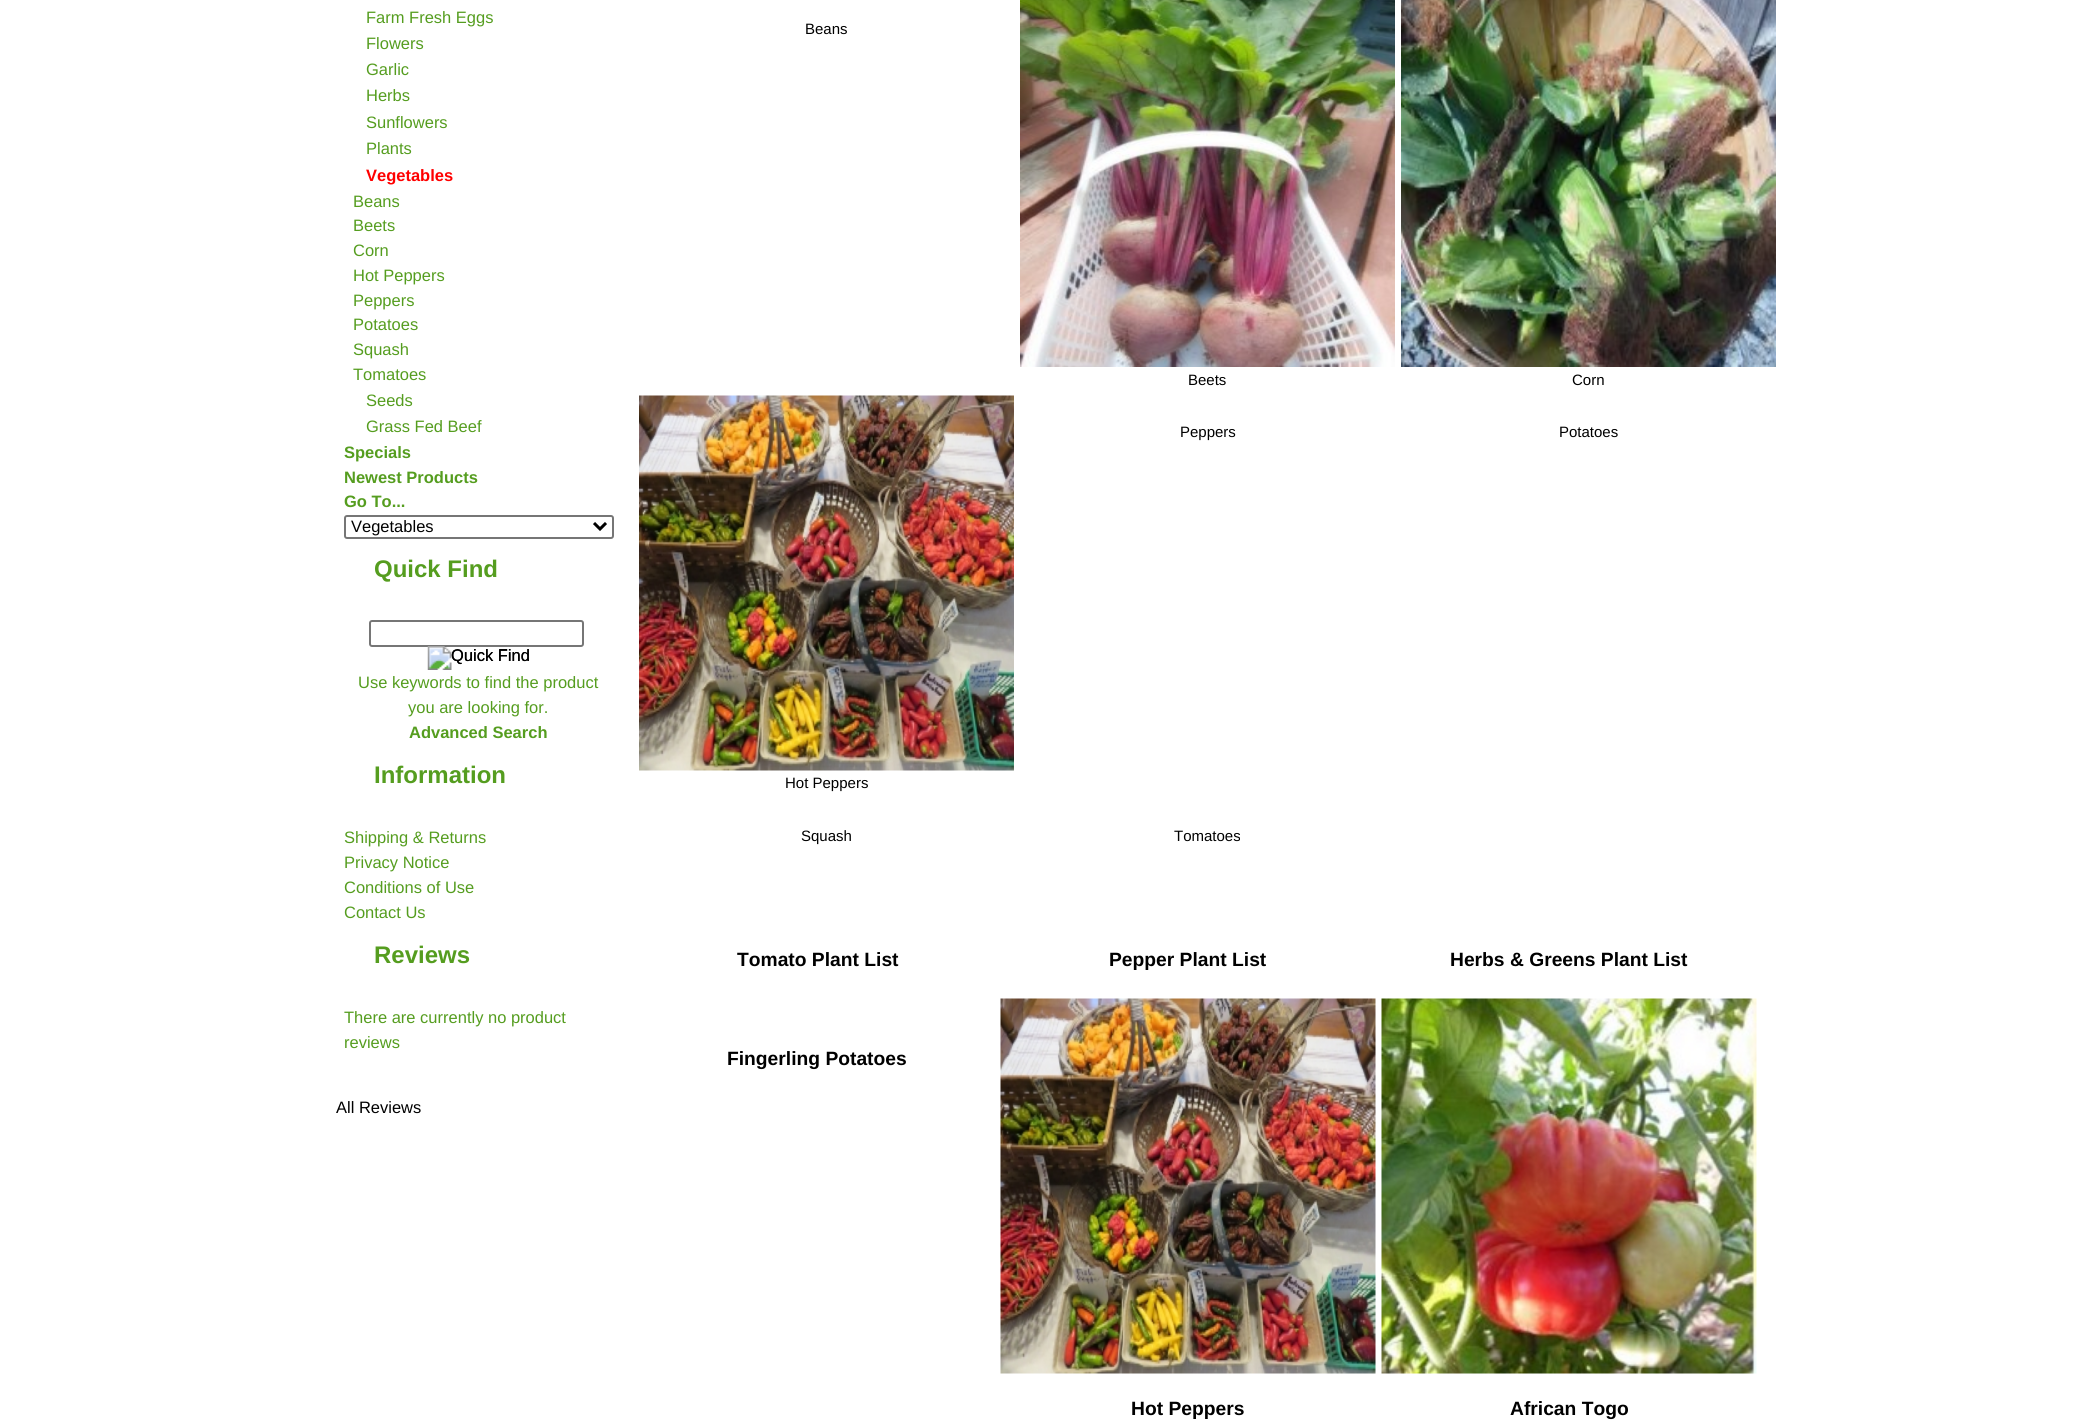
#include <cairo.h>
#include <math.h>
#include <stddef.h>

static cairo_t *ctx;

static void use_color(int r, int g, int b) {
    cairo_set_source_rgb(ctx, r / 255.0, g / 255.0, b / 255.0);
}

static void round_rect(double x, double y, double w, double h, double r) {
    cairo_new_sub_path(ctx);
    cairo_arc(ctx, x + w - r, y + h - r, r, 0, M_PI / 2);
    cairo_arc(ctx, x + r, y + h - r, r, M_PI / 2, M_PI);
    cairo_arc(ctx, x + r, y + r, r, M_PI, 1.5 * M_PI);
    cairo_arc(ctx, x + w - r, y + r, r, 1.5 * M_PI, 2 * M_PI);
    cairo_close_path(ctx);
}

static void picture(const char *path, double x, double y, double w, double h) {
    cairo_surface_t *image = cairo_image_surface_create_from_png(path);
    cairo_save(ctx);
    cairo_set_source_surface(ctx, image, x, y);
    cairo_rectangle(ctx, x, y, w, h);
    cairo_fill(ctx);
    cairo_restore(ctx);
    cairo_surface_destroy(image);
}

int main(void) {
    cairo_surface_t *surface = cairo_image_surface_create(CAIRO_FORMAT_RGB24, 2097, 1423);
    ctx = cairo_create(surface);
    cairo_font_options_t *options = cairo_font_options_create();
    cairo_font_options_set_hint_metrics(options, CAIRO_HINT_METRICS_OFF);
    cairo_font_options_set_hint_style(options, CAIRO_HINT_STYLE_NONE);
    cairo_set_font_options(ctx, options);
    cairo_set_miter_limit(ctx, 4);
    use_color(255, 255, 255);
    cairo_paint(ctx);
    cairo_select_font_face(ctx, "Liberation Sans", CAIRO_FONT_SLANT_NORMAL, CAIRO_FONT_WEIGHT_NORMAL);
    cairo_set_font_size(ctx, 16.5);
    use_color(85, 157, 31);
    cairo_move_to(ctx, 366, 23);
    cairo_show_text(ctx, "Farm Fresh Eggs");
    cairo_move_to(ctx, 366, 49);
    cairo_show_text(ctx, "Flowers");
    cairo_move_to(ctx, 366, 75);
    cairo_show_text(ctx, "Garlic");
    cairo_move_to(ctx, 366, 101);
    cairo_show_text(ctx, "Herbs");
    cairo_move_to(ctx, 366, 128);
    cairo_show_text(ctx, "Sunflowers");
    cairo_move_to(ctx, 366, 154);
    cairo_show_text(ctx, "Plants");
    cairo_select_font_face(ctx, "Liberation Sans", CAIRO_FONT_SLANT_NORMAL, CAIRO_FONT_WEIGHT_BOLD);
    use_color(255, 0, 0);
    cairo_move_to(ctx, 366, 181);
    cairo_show_text(ctx, "Vegetables");
    cairo_select_font_face(ctx, "Liberation Sans", CAIRO_FONT_SLANT_NORMAL, CAIRO_FONT_WEIGHT_NORMAL);
    use_color(85, 157, 31);
    cairo_move_to(ctx, 353, 207);
    cairo_show_text(ctx, "Beans");
    cairo_move_to(ctx, 353, 231);
    cairo_show_text(ctx, "Beets");
    cairo_move_to(ctx, 353, 256);
    cairo_show_text(ctx, "Corn");
    cairo_move_to(ctx, 353, 281);
    cairo_show_text(ctx, "Hot Peppers");
    cairo_move_to(ctx, 353, 306);
    cairo_show_text(ctx, "Peppers");
    cairo_move_to(ctx, 353, 330);
    cairo_show_text(ctx, "Potatoes");
    cairo_move_to(ctx, 353, 355);
    cairo_show_text(ctx, "Squash");
    cairo_move_to(ctx, 353, 380);
    cairo_show_text(ctx, "Tomatoes");
    cairo_move_to(ctx, 366, 406);
    cairo_show_text(ctx, "Seeds");
    cairo_move_to(ctx, 366, 432);
    cairo_show_text(ctx, "Grass Fed Beef");
    cairo_select_font_face(ctx, "Liberation Sans", CAIRO_FONT_SLANT_NORMAL, CAIRO_FONT_WEIGHT_BOLD);
    cairo_move_to(ctx, 344, 458);
    cairo_show_text(ctx, "Specials");
    cairo_move_to(ctx, 344, 483);
    cairo_show_text(ctx, "Newest Products");
    cairo_move_to(ctx, 344, 507);
    cairo_show_text(ctx, "Go To...");
    round_rect(345, 516, 268, 22, 2);
    use_color(118, 118, 118);
    cairo_stroke(ctx);
    cairo_new_path(ctx);
    cairo_move_to(ctx, 594, 523);
    cairo_line_to(ctx, 600, 529);
    cairo_line_to(ctx, 606, 523);
    use_color(0, 0, 0);
    cairo_set_line_width(ctx, 3);
    cairo_stroke(ctx);
    cairo_select_font_face(ctx, "Liberation Sans", CAIRO_FONT_SLANT_NORMAL, CAIRO_FONT_WEIGHT_NORMAL);
    cairo_move_to(ctx, 351, 532);
    cairo_show_text(ctx, "Vegetables");
    cairo_select_font_face(ctx, "Liberation Sans", CAIRO_FONT_SLANT_NORMAL, CAIRO_FONT_WEIGHT_BOLD);
    cairo_set_font_size(ctx, 24);
    use_color(85, 157, 31);
    cairo_move_to(ctx, 374, 577);
    cairo_show_text(ctx, "Quick Find");
    round_rect(370, 621, 213, 25, 2);
    use_color(118, 118, 118);
    cairo_set_line_width(ctx, 2);
    cairo_stroke(ctx);
    picture("img1.png", 427, 646, 102, 24);
    cairo_select_font_face(ctx, "Liberation Sans", CAIRO_FONT_SLANT_NORMAL, CAIRO_FONT_WEIGHT_NORMAL);
    cairo_set_font_size(ctx, 16.5);
    use_color(0, 0, 0);
    cairo_move_to(ctx, 451, 661);
    cairo_show_text(ctx, "Quick Find");
    use_color(85, 157, 31);
    cairo_move_to(ctx, 358, 688);
    cairo_show_text(ctx, "Use keywords to find the product");
    cairo_move_to(ctx, 408, 713);
    cairo_show_text(ctx, "you are looking for.");
    cairo_select_font_face(ctx, "Liberation Sans", CAIRO_FONT_SLANT_NORMAL, CAIRO_FONT_WEIGHT_BOLD);
    cairo_move_to(ctx, 409, 738);
    cairo_show_text(ctx, "Advanced Search");
    cairo_set_font_size(ctx, 24);
    cairo_move_to(ctx, 374, 783);
    cairo_show_text(ctx, "Information");
    cairo_select_font_face(ctx, "Liberation Sans", CAIRO_FONT_SLANT_NORMAL, CAIRO_FONT_WEIGHT_NORMAL);
    cairo_set_font_size(ctx, 16.5);
    cairo_move_to(ctx, 344, 843);
    cairo_show_text(ctx, "Shipping & Returns");
    cairo_move_to(ctx, 344, 868);
    cairo_show_text(ctx, "Privacy Notice");
    cairo_move_to(ctx, 344, 893);
    cairo_show_text(ctx, "Conditions of Use");
    cairo_move_to(ctx, 344, 918);
    cairo_show_text(ctx, "Contact Us");
    cairo_select_font_face(ctx, "Liberation Sans", CAIRO_FONT_SLANT_NORMAL, CAIRO_FONT_WEIGHT_BOLD);
    cairo_set_font_size(ctx, 24);
    cairo_move_to(ctx, 374, 963);
    cairo_show_text(ctx, "Reviews");
    cairo_select_font_face(ctx, "Liberation Sans", CAIRO_FONT_SLANT_NORMAL, CAIRO_FONT_WEIGHT_NORMAL);
    cairo_set_font_size(ctx, 16.5);
    cairo_move_to(ctx, 344, 1023);
    cairo_show_text(ctx, "There are currently no product");
    cairo_move_to(ctx, 344, 1048);
    cairo_show_text(ctx, "reviews");
    use_color(0, 0, 0);
    cairo_move_to(ctx, 336, 1113);
    cairo_show_text(ctx, "All Reviews");
    cairo_set_font_size(ctx, 15);
    cairo_move_to(ctx, 805, 34);
    cairo_show_text(ctx, "Beans");
    picture("img2.png", 1020, 0, 375, 367);
    cairo_move_to(ctx, 1188, 385);
    cairo_show_text(ctx, "Beets");
    picture("img3.png", 1401, 0, 375, 367);
    cairo_move_to(ctx, 1572, 385);
    cairo_show_text(ctx, "Corn");
    cairo_move_to(ctx, 1180, 437);
    cairo_show_text(ctx, "Peppers");
    cairo_move_to(ctx, 1559, 437);
    cairo_show_text(ctx, "Potatoes");
    picture("img4.png", 639, 395, 375, 376);
    cairo_move_to(ctx, 785, 788);
    cairo_show_text(ctx, "Hot Peppers");
    cairo_move_to(ctx, 801, 841);
    cairo_show_text(ctx, "Squash");
    cairo_move_to(ctx, 1174, 841);
    cairo_show_text(ctx, "Tomatoes");
    cairo_select_font_face(ctx, "Liberation Sans", CAIRO_FONT_SLANT_NORMAL, CAIRO_FONT_WEIGHT_BOLD);
    cairo_set_font_size(ctx, 19.25);
    cairo_move_to(ctx, 737, 966);
    cairo_show_text(ctx, "Tomato Plant List");
    cairo_move_to(ctx, 1109, 966);
    cairo_show_text(ctx, "Pepper Plant List");
    cairo_move_to(ctx, 1450, 966);
    cairo_show_text(ctx, "Herbs & Greens Plant List");
    cairo_move_to(ctx, 727, 1065);
    cairo_show_text(ctx, "Fingerling Potatoes");
    picture("img5.png", 1000, 998, 376, 376);
    cairo_move_to(ctx, 1131, 1415);
    cairo_show_text(ctx, "Hot Peppers");
    picture("img6.png", 1381, 998, 376, 376);
    cairo_move_to(ctx, 1510, 1415);
    cairo_show_text(ctx, "African Togo");
    cairo_surface_write_to_png(surface, "result.png");
    cairo_font_options_destroy(options);
    cairo_destroy(ctx);
    cairo_surface_destroy(surface);
    return 0;
}
